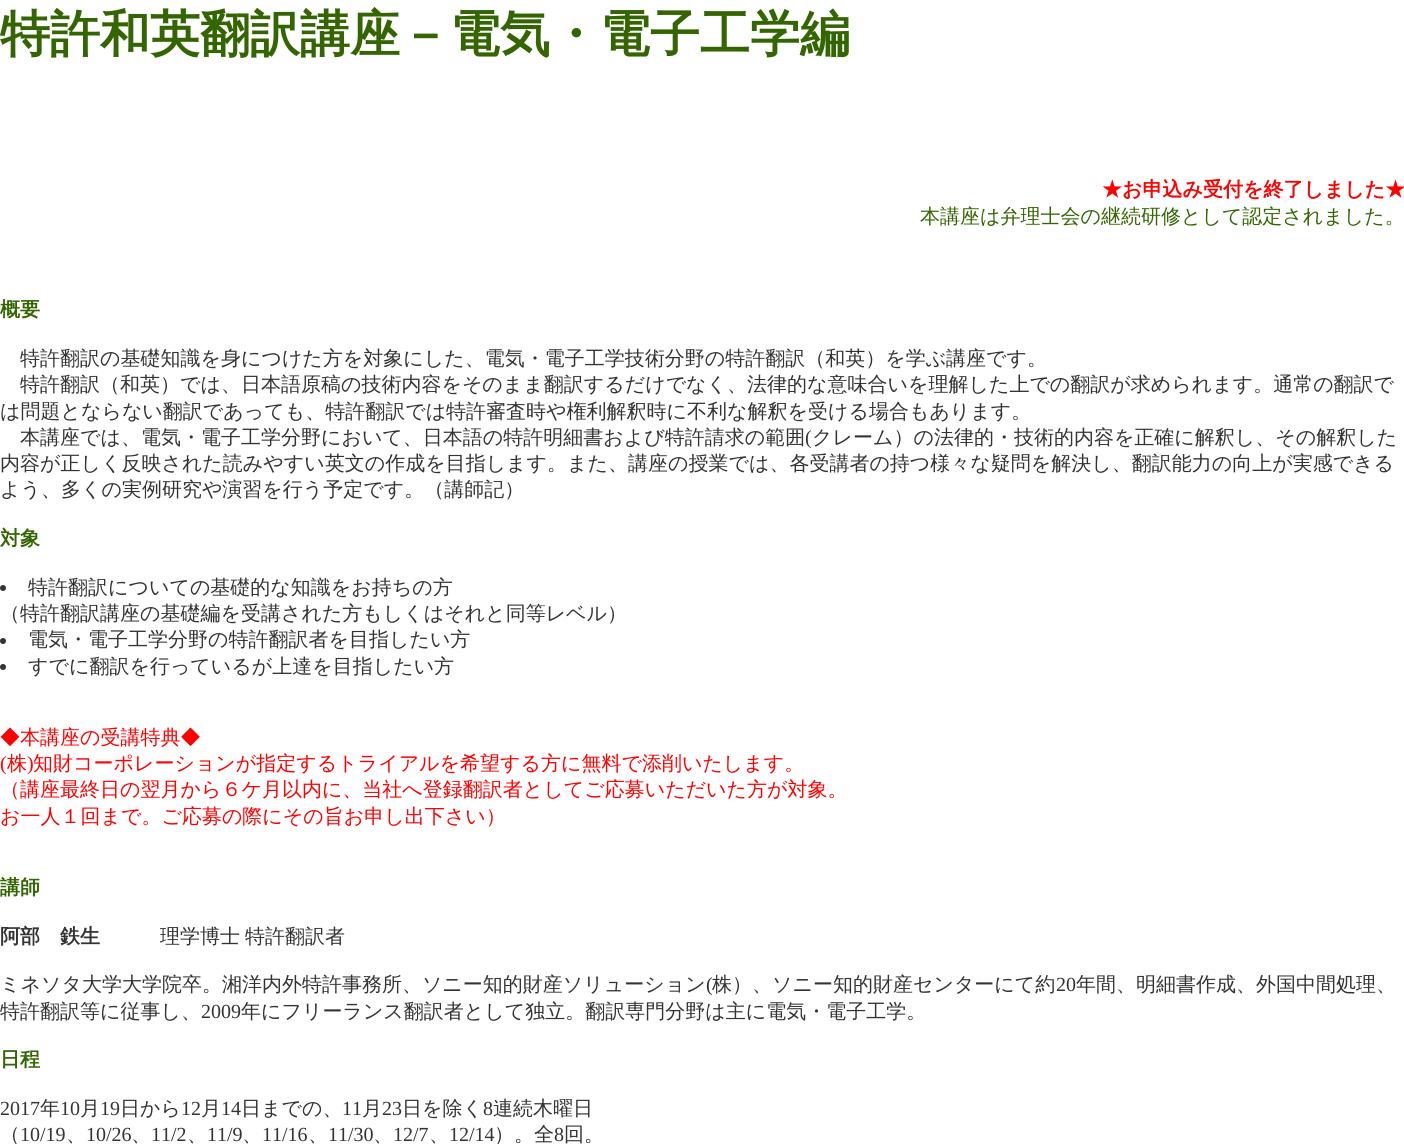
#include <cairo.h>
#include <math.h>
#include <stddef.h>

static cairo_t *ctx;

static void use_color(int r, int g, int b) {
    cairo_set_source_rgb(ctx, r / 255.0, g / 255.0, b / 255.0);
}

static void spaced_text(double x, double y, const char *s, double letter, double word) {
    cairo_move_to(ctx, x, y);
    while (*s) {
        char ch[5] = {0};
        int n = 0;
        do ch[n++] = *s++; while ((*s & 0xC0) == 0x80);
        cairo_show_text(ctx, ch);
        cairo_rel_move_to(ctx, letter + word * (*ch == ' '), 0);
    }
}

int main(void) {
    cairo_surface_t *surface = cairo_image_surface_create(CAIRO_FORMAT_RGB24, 1404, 1144);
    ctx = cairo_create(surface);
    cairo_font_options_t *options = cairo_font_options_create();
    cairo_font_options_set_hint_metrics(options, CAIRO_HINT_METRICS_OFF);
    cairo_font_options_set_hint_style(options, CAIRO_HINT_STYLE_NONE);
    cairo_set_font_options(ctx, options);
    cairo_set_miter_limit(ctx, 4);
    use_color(255, 255, 255);
    cairo_paint(ctx);
    cairo_select_font_face(ctx, "WenQuanYi Zen Hei", CAIRO_FONT_SLANT_NORMAL, CAIRO_FONT_WEIGHT_BOLD);
    cairo_set_font_size(ctx, 50);
    use_color(51, 102, 0);
    cairo_move_to(ctx, 0, 51);
    cairo_show_text(ctx, "特許和英翻訳講座－電気・電子工学編");
    cairo_set_font_size(ctx, 20);
    use_color(255, 0, 0);
    cairo_move_to(ctx, 1102, 196);
    cairo_show_text(ctx, "★お申込み受付を終了しました★");
    cairo_select_font_face(ctx, "WenQuanYi Zen Hei Medium", CAIRO_FONT_SLANT_NORMAL, CAIRO_FONT_WEIGHT_NORMAL);
    use_color(51, 102, 0);
    cairo_move_to(ctx, 920, 223);
    cairo_show_text(ctx, "本講座は弁理士会の継続研修として認定されました。");
    cairo_select_font_face(ctx, "WenQuanYi Zen Hei", CAIRO_FONT_SLANT_NORMAL, CAIRO_FONT_WEIGHT_BOLD);
    cairo_move_to(ctx, 0, 316);
    cairo_show_text(ctx, "概要");
    cairo_select_font_face(ctx, "WenQuanYi Zen Hei Medium", CAIRO_FONT_SLANT_NORMAL, CAIRO_FONT_WEIGHT_NORMAL);
    use_color(51, 51, 51);
    cairo_move_to(ctx, 20, 365);
    cairo_show_text(ctx, "特許翻訳の基礎知識を身につけた方を対象にした、電気・電子工学技術分野の特許翻訳（和英）を学ぶ講座です。");
    cairo_move_to(ctx, 20, 391);
    cairo_show_text(ctx, "特許翻訳（和英）では、日本語原稿の技術内容をそのまま翻訳するだけでなく、法律的な意味合いを理解した上での翻訳が求められます。通常の翻訳で");
    cairo_move_to(ctx, 0, 418);
    cairo_show_text(ctx, "は問題とならない翻訳であっても、特許翻訳では特許審査時や権利解釈時に不利な解釈を受ける場合もあります。");
    cairo_move_to(ctx, 20, 444);
    cairo_show_text(ctx, "本講座では、電気・電子工学分野において、日本語の特許明細書および特許請求の範囲");
    cairo_select_font_face(ctx, "Liberation Serif", CAIRO_FONT_SLANT_NORMAL, CAIRO_FONT_WEIGHT_NORMAL);
    cairo_move_to(ctx, 805, 444);
    cairo_show_text(ctx, "(");
    cairo_select_font_face(ctx, "WenQuanYi Zen Hei Medium", CAIRO_FONT_SLANT_NORMAL, CAIRO_FONT_WEIGHT_NORMAL);
    cairo_move_to(ctx, 812, 444);
    cairo_show_text(ctx, "クレーム）の法律的・技術的内容を正確に解釈し、その解釈した");
    cairo_move_to(ctx, 0, 470);
    cairo_show_text(ctx, "内容が正しく反映された読みやすい英文の作成を目指します。また、講座の授業では、各受講者の持つ様々な疑問を解決し、翻訳能力の向上が実感できる");
    cairo_move_to(ctx, 0, 496);
    cairo_show_text(ctx, "よう、多くの実例研究や演習を行う予定です。（講師記）");
    cairo_select_font_face(ctx, "WenQuanYi Zen Hei", CAIRO_FONT_SLANT_NORMAL, CAIRO_FONT_WEIGHT_BOLD);
    use_color(51, 102, 0);
    cairo_move_to(ctx, 0, 545);
    cairo_show_text(ctx, "対象");
    use_color(51, 51, 51);
    cairo_new_path(ctx);
    cairo_arc(ctx, 3, 588, 3, 0, 2 * M_PI);
    cairo_fill(ctx);
    cairo_select_font_face(ctx, "WenQuanYi Zen Hei Medium", CAIRO_FONT_SLANT_NORMAL, CAIRO_FONT_WEIGHT_NORMAL);
    cairo_move_to(ctx, 28, 594);
    cairo_show_text(ctx, "特許翻訳についての基礎的な知識をお持ちの方");
    cairo_move_to(ctx, 0, 620);
    cairo_show_text(ctx, "（特許翻訳講座の基礎編を受講された方もしくはそれと同等レベル）");
    cairo_new_path(ctx);
    cairo_arc(ctx, 3, 641, 3, 0, 2 * M_PI);
    cairo_fill(ctx);
    cairo_move_to(ctx, 28, 646);
    cairo_show_text(ctx, "電気・電子工学分野の特許翻訳者を目指したい方");
    cairo_new_path(ctx);
    cairo_arc(ctx, 3, 667, 3, 0, 2 * M_PI);
    cairo_fill(ctx);
    cairo_move_to(ctx, 28, 673);
    cairo_show_text(ctx, "すでに翻訳を行っているが上達を目指したい方");
    use_color(255, 0, 0);
    cairo_move_to(ctx, 0, 744);
    cairo_show_text(ctx, "◆本講座の受講特典◆");
    cairo_select_font_face(ctx, "Liberation Serif", CAIRO_FONT_SLANT_NORMAL, CAIRO_FONT_WEIGHT_NORMAL);
    cairo_move_to(ctx, 0, 770);
    cairo_show_text(ctx, "(");
    cairo_select_font_face(ctx, "WenQuanYi Zen Hei Medium", CAIRO_FONT_SLANT_NORMAL, CAIRO_FONT_WEIGHT_NORMAL);
    cairo_move_to(ctx, 7, 770);
    cairo_show_text(ctx, "株");
    cairo_select_font_face(ctx, "Liberation Serif", CAIRO_FONT_SLANT_NORMAL, CAIRO_FONT_WEIGHT_NORMAL);
    cairo_move_to(ctx, 27, 770);
    cairo_show_text(ctx, ")");
    cairo_select_font_face(ctx, "WenQuanYi Zen Hei Medium", CAIRO_FONT_SLANT_NORMAL, CAIRO_FONT_WEIGHT_NORMAL);
    cairo_move_to(ctx, 33, 770);
    cairo_show_text(ctx, "知財コーポレーションが指定するトライアルを希望する方に無料で添削いたします。");
    cairo_move_to(ctx, 0, 796);
    cairo_show_text(ctx, "（講座最終日の翌月から６ケ月以内に、当社へ登録翻訳者としてご応募いただいた方が対象。");
    cairo_move_to(ctx, 0, 823);
    cairo_show_text(ctx, "お一人１回まで。ご応募の際にその旨お申し出下さい）");
    cairo_select_font_face(ctx, "WenQuanYi Zen Hei", CAIRO_FONT_SLANT_NORMAL, CAIRO_FONT_WEIGHT_BOLD);
    use_color(51, 102, 0);
    cairo_move_to(ctx, 0, 894);
    cairo_show_text(ctx, "講師");
    use_color(51, 51, 51);
    cairo_move_to(ctx, 0, 943);
    cairo_show_text(ctx, "阿部　鉄生");
    cairo_select_font_face(ctx, "WenQuanYi Zen Hei Medium", CAIRO_FONT_SLANT_NORMAL, CAIRO_FONT_WEIGHT_NORMAL);
    spaced_text(160, 943, "理学博士 特許翻訳者", 0, -1);
    cairo_move_to(ctx, 0, 991);
    cairo_show_text(ctx, "ミネソタ大学大学院卒。湘洋内外特許事務所、ソニー知的財産ソリューション");
    cairo_select_font_face(ctx, "Liberation Serif", CAIRO_FONT_SLANT_NORMAL, CAIRO_FONT_WEIGHT_NORMAL);
    cairo_move_to(ctx, 706, 991);
    cairo_show_text(ctx, "(");
    cairo_select_font_face(ctx, "WenQuanYi Zen Hei Medium", CAIRO_FONT_SLANT_NORMAL, CAIRO_FONT_WEIGHT_NORMAL);
    cairo_move_to(ctx, 712, 991);
    cairo_show_text(ctx, "株）、ソニー知的財産センターにて約");
    cairo_select_font_face(ctx, "Liberation Serif", CAIRO_FONT_SLANT_NORMAL, CAIRO_FONT_WEIGHT_NORMAL);
    cairo_move_to(ctx, 1056, 991);
    cairo_show_text(ctx, "20");
    cairo_select_font_face(ctx, "WenQuanYi Zen Hei Medium", CAIRO_FONT_SLANT_NORMAL, CAIRO_FONT_WEIGHT_NORMAL);
    cairo_move_to(ctx, 1076, 991);
    cairo_show_text(ctx, "年間、明細書作成、外国中間処理、");
    cairo_move_to(ctx, 0, 1018);
    cairo_show_text(ctx, "特許翻訳等に従事し、");
    cairo_select_font_face(ctx, "Liberation Serif", CAIRO_FONT_SLANT_NORMAL, CAIRO_FONT_WEIGHT_NORMAL);
    cairo_move_to(ctx, 201, 1018);
    cairo_show_text(ctx, "2009");
    cairo_select_font_face(ctx, "WenQuanYi Zen Hei Medium", CAIRO_FONT_SLANT_NORMAL, CAIRO_FONT_WEIGHT_NORMAL);
    cairo_move_to(ctx, 241, 1018);
    cairo_show_text(ctx, "年にフリーランス翻訳者として独立。翻訳専門分野は主に電気・電子工学。");
    cairo_select_font_face(ctx, "WenQuanYi Zen Hei", CAIRO_FONT_SLANT_NORMAL, CAIRO_FONT_WEIGHT_BOLD);
    use_color(51, 102, 0);
    cairo_move_to(ctx, 0, 1066);
    cairo_show_text(ctx, "日程");
    cairo_select_font_face(ctx, "Liberation Serif", CAIRO_FONT_SLANT_NORMAL, CAIRO_FONT_WEIGHT_NORMAL);
    use_color(51, 51, 51);
    cairo_move_to(ctx, 0, 1115);
    cairo_show_text(ctx, "2017");
    cairo_select_font_face(ctx, "WenQuanYi Zen Hei Medium", CAIRO_FONT_SLANT_NORMAL, CAIRO_FONT_WEIGHT_NORMAL);
    cairo_move_to(ctx, 40, 1115);
    cairo_show_text(ctx, "年");
    cairo_select_font_face(ctx, "Liberation Serif", CAIRO_FONT_SLANT_NORMAL, CAIRO_FONT_WEIGHT_NORMAL);
    cairo_move_to(ctx, 60, 1115);
    cairo_show_text(ctx, "10");
    cairo_select_font_face(ctx, "WenQuanYi Zen Hei Medium", CAIRO_FONT_SLANT_NORMAL, CAIRO_FONT_WEIGHT_NORMAL);
    cairo_move_to(ctx, 80, 1115);
    cairo_show_text(ctx, "月");
    cairo_select_font_face(ctx, "Liberation Serif", CAIRO_FONT_SLANT_NORMAL, CAIRO_FONT_WEIGHT_NORMAL);
    cairo_move_to(ctx, 100, 1115);
    cairo_show_text(ctx, "19");
    cairo_select_font_face(ctx, "WenQuanYi Zen Hei Medium", CAIRO_FONT_SLANT_NORMAL, CAIRO_FONT_WEIGHT_NORMAL);
    cairo_move_to(ctx, 120, 1115);
    cairo_show_text(ctx, "日から");
    cairo_select_font_face(ctx, "Liberation Serif", CAIRO_FONT_SLANT_NORMAL, CAIRO_FONT_WEIGHT_NORMAL);
    cairo_move_to(ctx, 181, 1115);
    cairo_show_text(ctx, "12");
    cairo_select_font_face(ctx, "WenQuanYi Zen Hei Medium", CAIRO_FONT_SLANT_NORMAL, CAIRO_FONT_WEIGHT_NORMAL);
    cairo_move_to(ctx, 201, 1115);
    cairo_show_text(ctx, "月");
    cairo_select_font_face(ctx, "Liberation Serif", CAIRO_FONT_SLANT_NORMAL, CAIRO_FONT_WEIGHT_NORMAL);
    cairo_move_to(ctx, 221, 1115);
    cairo_show_text(ctx, "14");
    cairo_select_font_face(ctx, "WenQuanYi Zen Hei Medium", CAIRO_FONT_SLANT_NORMAL, CAIRO_FONT_WEIGHT_NORMAL);
    cairo_move_to(ctx, 241, 1115);
    cairo_show_text(ctx, "日までの、");
    cairo_select_font_face(ctx, "Liberation Serif", CAIRO_FONT_SLANT_NORMAL, CAIRO_FONT_WEIGHT_NORMAL);
    cairo_move_to(ctx, 342, 1115);
    cairo_show_text(ctx, "11");
    cairo_select_font_face(ctx, "WenQuanYi Zen Hei Medium", CAIRO_FONT_SLANT_NORMAL, CAIRO_FONT_WEIGHT_NORMAL);
    cairo_move_to(ctx, 362, 1115);
    cairo_show_text(ctx, "月");
    cairo_select_font_face(ctx, "Liberation Serif", CAIRO_FONT_SLANT_NORMAL, CAIRO_FONT_WEIGHT_NORMAL);
    cairo_move_to(ctx, 382, 1115);
    cairo_show_text(ctx, "23");
    cairo_select_font_face(ctx, "WenQuanYi Zen Hei Medium", CAIRO_FONT_SLANT_NORMAL, CAIRO_FONT_WEIGHT_NORMAL);
    cairo_move_to(ctx, 402, 1115);
    cairo_show_text(ctx, "日を除く");
    cairo_select_font_face(ctx, "Liberation Serif", CAIRO_FONT_SLANT_NORMAL, CAIRO_FONT_WEIGHT_NORMAL);
    cairo_move_to(ctx, 483, 1115);
    cairo_show_text(ctx, "8");
    cairo_select_font_face(ctx, "WenQuanYi Zen Hei Medium", CAIRO_FONT_SLANT_NORMAL, CAIRO_FONT_WEIGHT_NORMAL);
    cairo_move_to(ctx, 493, 1115);
    cairo_show_text(ctx, "連続木曜日");
    cairo_move_to(ctx, 0, 1141);
    cairo_show_text(ctx, "（");
    cairo_select_font_face(ctx, "Liberation Serif", CAIRO_FONT_SLANT_NORMAL, CAIRO_FONT_WEIGHT_NORMAL);
    cairo_move_to(ctx, 20, 1141);
    cairo_show_text(ctx, "10/19");
    cairo_select_font_face(ctx, "WenQuanYi Zen Hei Medium", CAIRO_FONT_SLANT_NORMAL, CAIRO_FONT_WEIGHT_NORMAL);
    cairo_move_to(ctx, 66, 1141);
    cairo_show_text(ctx, "、");
    cairo_select_font_face(ctx, "Liberation Serif", CAIRO_FONT_SLANT_NORMAL, CAIRO_FONT_WEIGHT_NORMAL);
    cairo_move_to(ctx, 86, 1141);
    cairo_show_text(ctx, "10/26");
    cairo_select_font_face(ctx, "WenQuanYi Zen Hei Medium", CAIRO_FONT_SLANT_NORMAL, CAIRO_FONT_WEIGHT_NORMAL);
    cairo_move_to(ctx, 131, 1141);
    cairo_show_text(ctx, "、");
    cairo_select_font_face(ctx, "Liberation Serif", CAIRO_FONT_SLANT_NORMAL, CAIRO_FONT_WEIGHT_NORMAL);
    cairo_move_to(ctx, 151, 1141);
    cairo_show_text(ctx, "11/2");
    cairo_select_font_face(ctx, "WenQuanYi Zen Hei Medium", CAIRO_FONT_SLANT_NORMAL, CAIRO_FONT_WEIGHT_NORMAL);
    cairo_move_to(ctx, 187, 1141);
    cairo_show_text(ctx, "、");
    cairo_select_font_face(ctx, "Liberation Serif", CAIRO_FONT_SLANT_NORMAL, CAIRO_FONT_WEIGHT_NORMAL);
    cairo_move_to(ctx, 207, 1141);
    cairo_show_text(ctx, "11/9");
    cairo_select_font_face(ctx, "WenQuanYi Zen Hei Medium", CAIRO_FONT_SLANT_NORMAL, CAIRO_FONT_WEIGHT_NORMAL);
    cairo_move_to(ctx, 242, 1141);
    cairo_show_text(ctx, "、");
    cairo_select_font_face(ctx, "Liberation Serif", CAIRO_FONT_SLANT_NORMAL, CAIRO_FONT_WEIGHT_NORMAL);
    cairo_move_to(ctx, 262, 1141);
    cairo_show_text(ctx, "11/16");
    cairo_select_font_face(ctx, "WenQuanYi Zen Hei Medium", CAIRO_FONT_SLANT_NORMAL, CAIRO_FONT_WEIGHT_NORMAL);
    cairo_move_to(ctx, 308, 1141);
    cairo_show_text(ctx, "、");
    cairo_select_font_face(ctx, "Liberation Serif", CAIRO_FONT_SLANT_NORMAL, CAIRO_FONT_WEIGHT_NORMAL);
    cairo_move_to(ctx, 328, 1141);
    cairo_show_text(ctx, "11/30");
    cairo_select_font_face(ctx, "WenQuanYi Zen Hei Medium", CAIRO_FONT_SLANT_NORMAL, CAIRO_FONT_WEIGHT_NORMAL);
    cairo_move_to(ctx, 373, 1141);
    cairo_show_text(ctx, "、");
    cairo_select_font_face(ctx, "Liberation Serif", CAIRO_FONT_SLANT_NORMAL, CAIRO_FONT_WEIGHT_NORMAL);
    cairo_move_to(ctx, 393, 1141);
    cairo_show_text(ctx, "12/7");
    cairo_select_font_face(ctx, "WenQuanYi Zen Hei Medium", CAIRO_FONT_SLANT_NORMAL, CAIRO_FONT_WEIGHT_NORMAL);
    cairo_move_to(ctx, 429, 1141);
    cairo_show_text(ctx, "、");
    cairo_select_font_face(ctx, "Liberation Serif", CAIRO_FONT_SLANT_NORMAL, CAIRO_FONT_WEIGHT_NORMAL);
    cairo_move_to(ctx, 449, 1141);
    cairo_show_text(ctx, "12/14");
    cairo_select_font_face(ctx, "WenQuanYi Zen Hei Medium", CAIRO_FONT_SLANT_NORMAL, CAIRO_FONT_WEIGHT_NORMAL);
    cairo_move_to(ctx, 494, 1141);
    cairo_show_text(ctx, "）。全");
    cairo_select_font_face(ctx, "Liberation Serif", CAIRO_FONT_SLANT_NORMAL, CAIRO_FONT_WEIGHT_NORMAL);
    cairo_move_to(ctx, 554, 1141);
    cairo_show_text(ctx, "8");
    cairo_select_font_face(ctx, "WenQuanYi Zen Hei Medium", CAIRO_FONT_SLANT_NORMAL, CAIRO_FONT_WEIGHT_NORMAL);
    cairo_move_to(ctx, 564, 1141);
    cairo_show_text(ctx, "回。");
    cairo_surface_write_to_png(surface, "result.png");
    cairo_font_options_destroy(options);
    cairo_destroy(ctx);
    cairo_surface_destroy(surface);
    return 0;
}
